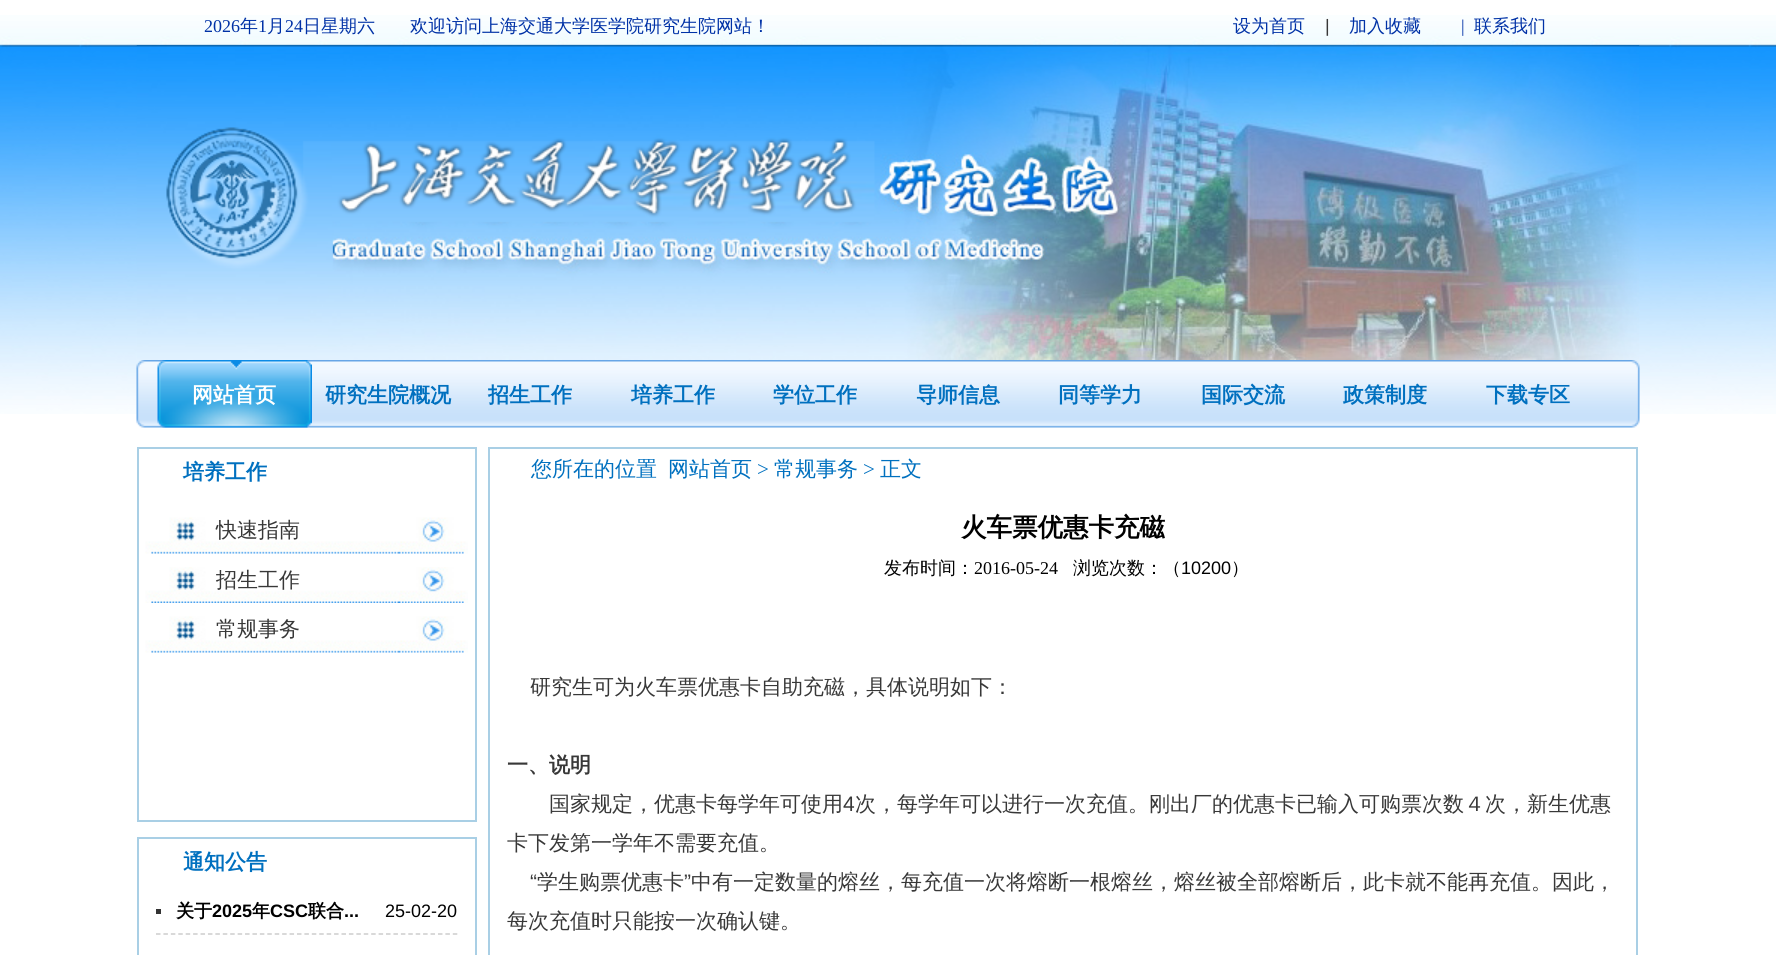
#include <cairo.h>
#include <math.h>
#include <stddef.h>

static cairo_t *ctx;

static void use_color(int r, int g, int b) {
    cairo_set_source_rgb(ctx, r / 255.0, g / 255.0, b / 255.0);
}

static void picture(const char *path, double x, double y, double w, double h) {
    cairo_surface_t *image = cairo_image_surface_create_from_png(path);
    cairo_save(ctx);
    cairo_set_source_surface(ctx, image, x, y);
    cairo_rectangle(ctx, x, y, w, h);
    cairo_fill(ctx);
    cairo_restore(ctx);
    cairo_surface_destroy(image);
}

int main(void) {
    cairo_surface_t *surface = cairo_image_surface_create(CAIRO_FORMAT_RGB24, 1776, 955);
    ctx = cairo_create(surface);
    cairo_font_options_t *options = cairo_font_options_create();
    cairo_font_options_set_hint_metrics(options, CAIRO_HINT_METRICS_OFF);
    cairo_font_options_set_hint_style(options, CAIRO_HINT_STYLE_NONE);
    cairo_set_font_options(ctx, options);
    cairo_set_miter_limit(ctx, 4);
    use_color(255, 255, 255);
    cairo_paint(ctx);
    picture("img1.png", 0, 15, 1776, 399);
    cairo_select_font_face(ctx, "Liberation Serif", CAIRO_FONT_SLANT_NORMAL, CAIRO_FONT_WEIGHT_NORMAL);
    cairo_set_font_size(ctx, 18);
    use_color(0, 49, 166);
    cairo_move_to(ctx, 204, 32);
    cairo_show_text(ctx, "2026");
    cairo_select_font_face(ctx, "WenQuanYi Zen Hei Medium", CAIRO_FONT_SLANT_NORMAL, CAIRO_FONT_WEIGHT_NORMAL);
    cairo_move_to(ctx, 240, 32);
    cairo_show_text(ctx, "年");
    cairo_select_font_face(ctx, "Liberation Serif", CAIRO_FONT_SLANT_NORMAL, CAIRO_FONT_WEIGHT_NORMAL);
    cairo_move_to(ctx, 258, 32);
    cairo_show_text(ctx, "1");
    cairo_select_font_face(ctx, "WenQuanYi Zen Hei Medium", CAIRO_FONT_SLANT_NORMAL, CAIRO_FONT_WEIGHT_NORMAL);
    cairo_move_to(ctx, 267, 32);
    cairo_show_text(ctx, "月");
    cairo_select_font_face(ctx, "Liberation Serif", CAIRO_FONT_SLANT_NORMAL, CAIRO_FONT_WEIGHT_NORMAL);
    cairo_move_to(ctx, 285, 32);
    cairo_show_text(ctx, "24");
    cairo_select_font_face(ctx, "WenQuanYi Zen Hei Medium", CAIRO_FONT_SLANT_NORMAL, CAIRO_FONT_WEIGHT_NORMAL);
    cairo_move_to(ctx, 303, 32);
    cairo_show_text(ctx, "日星期六");
    cairo_move_to(ctx, 410, 32);
    cairo_show_text(ctx, "欢迎访问上海交通大学医学院研究生院网站！");
    cairo_move_to(ctx, 1233, 32);
    cairo_show_text(ctx, "设为首页");
    cairo_select_font_face(ctx, "Liberation Sans", CAIRO_FONT_SLANT_NORMAL, CAIRO_FONT_WEIGHT_NORMAL);
    use_color(56, 56, 56);
    cairo_move_to(ctx, 1325, 32);
    cairo_show_text(ctx, "|");
    cairo_select_font_face(ctx, "WenQuanYi Zen Hei Medium", CAIRO_FONT_SLANT_NORMAL, CAIRO_FONT_WEIGHT_NORMAL);
    use_color(0, 49, 166);
    cairo_move_to(ctx, 1349, 32);
    cairo_show_text(ctx, "加入收藏");
    cairo_select_font_face(ctx, "Liberation Serif", CAIRO_FONT_SLANT_NORMAL, CAIRO_FONT_WEIGHT_NORMAL);
    cairo_move_to(ctx, 1461, 32);
    cairo_show_text(ctx, "|");
    cairo_select_font_face(ctx, "WenQuanYi Zen Hei Medium", CAIRO_FONT_SLANT_NORMAL, CAIRO_FONT_WEIGHT_NORMAL);
    cairo_move_to(ctx, 1474, 32);
    cairo_show_text(ctx, "联系我们");
    picture("img2.png", 136, 45, 1504, 315);
    picture("img3.png", 136, 360, 1504, 68);
    picture("img4.png", 157, 360, 155, 68);
    cairo_select_font_face(ctx, "WenQuanYi Zen Hei", CAIRO_FONT_SLANT_NORMAL, CAIRO_FONT_WEIGHT_BOLD);
    cairo_set_font_size(ctx, 21);
    use_color(255, 255, 255);
    cairo_move_to(ctx, 192, 402);
    cairo_show_text(ctx, "网站首页");
    use_color(0, 112, 191);
    cairo_move_to(ctx, 325, 402);
    cairo_show_text(ctx, "研究生院概况");
    cairo_move_to(ctx, 488, 402);
    cairo_show_text(ctx, "招生工作");
    cairo_move_to(ctx, 631, 402);
    cairo_show_text(ctx, "培养工作");
    cairo_move_to(ctx, 773, 402);
    cairo_show_text(ctx, "学位工作");
    cairo_move_to(ctx, 916, 402);
    cairo_show_text(ctx, "导师信息");
    cairo_move_to(ctx, 1058, 402);
    cairo_show_text(ctx, "同等学力");
    cairo_move_to(ctx, 1201, 402);
    cairo_show_text(ctx, "国际交流");
    cairo_move_to(ctx, 1343, 402);
    cairo_show_text(ctx, "政策制度");
    cairo_move_to(ctx, 1486, 402);
    cairo_show_text(ctx, "下载专区");
    cairo_rectangle(ctx, 138, 448, 338, 373);
    use_color(169, 207, 229);
    cairo_stroke(ctx);
    use_color(0, 112, 191);
    cairo_move_to(ctx, 183, 479);
    cairo_show_text(ctx, "培养工作");
    picture("img5.png", 145, 517, 323, 37);
    cairo_select_font_face(ctx, "WenQuanYi Zen Hei Medium", CAIRO_FONT_SLANT_NORMAL, CAIRO_FONT_WEIGHT_NORMAL);
    use_color(56, 56, 56);
    cairo_move_to(ctx, 216, 537);
    cairo_show_text(ctx, "快速指南");
    picture("img6.png", 145, 567, 323, 36);
    cairo_move_to(ctx, 216, 587);
    cairo_show_text(ctx, "招生工作");
    picture("img5.png", 145, 616, 323, 37);
    cairo_move_to(ctx, 216, 636);
    cairo_show_text(ctx, "常规事务");
    cairo_rectangle(ctx, 489, 448, 1148, 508);
    use_color(169, 207, 229);
    cairo_stroke(ctx);
    use_color(0, 112, 191);
    cairo_move_to(ctx, 531, 476);
    cairo_show_text(ctx, "您所在的位置");
    cairo_move_to(ctx, 668, 476);
    cairo_show_text(ctx, "网站首页");
    cairo_select_font_face(ctx, "Liberation Serif", CAIRO_FONT_SLANT_NORMAL, CAIRO_FONT_WEIGHT_NORMAL);
    cairo_move_to(ctx, 757, 476);
    cairo_show_text(ctx, ">");
    cairo_select_font_face(ctx, "WenQuanYi Zen Hei Medium", CAIRO_FONT_SLANT_NORMAL, CAIRO_FONT_WEIGHT_NORMAL);
    cairo_move_to(ctx, 774, 476);
    cairo_show_text(ctx, "常规事务");
    cairo_select_font_face(ctx, "Liberation Serif", CAIRO_FONT_SLANT_NORMAL, CAIRO_FONT_WEIGHT_NORMAL);
    cairo_move_to(ctx, 863, 476);
    cairo_show_text(ctx, ">");
    cairo_select_font_face(ctx, "WenQuanYi Zen Hei Medium", CAIRO_FONT_SLANT_NORMAL, CAIRO_FONT_WEIGHT_NORMAL);
    cairo_move_to(ctx, 880, 476);
    cairo_show_text(ctx, "正文");
    cairo_rectangle(ctx, 138, 838, 338, 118);
    use_color(169, 207, 229);
    cairo_stroke(ctx);
    cairo_select_font_face(ctx, "WenQuanYi Zen Hei", CAIRO_FONT_SLANT_NORMAL, CAIRO_FONT_WEIGHT_BOLD);
    use_color(0, 112, 191);
    cairo_move_to(ctx, 183, 869);
    cairo_show_text(ctx, "通知公告");
    cairo_new_path(ctx);
    cairo_move_to(ctx, 156, 934);
    cairo_line_to(ctx, 457.5, 934);
    use_color(204, 204, 204);
    cairo_set_line_width(ctx, 1.5);
    cairo_set_dash(ctx, (double[]){4.5, 2.92}, 2, 0);
    cairo_stroke(ctx);
    use_color(51, 51, 51);
    cairo_rectangle(ctx, 156, 909, 5, 5);
    cairo_fill(ctx);
    cairo_set_font_size(ctx, 18);
    use_color(0, 0, 0);
    cairo_move_to(ctx, 176, 917);
    cairo_show_text(ctx, "关于");
    cairo_select_font_face(ctx, "Liberation Sans", CAIRO_FONT_SLANT_NORMAL, CAIRO_FONT_WEIGHT_BOLD);
    cairo_move_to(ctx, 212, 917);
    cairo_show_text(ctx, "2025");
    cairo_select_font_face(ctx, "WenQuanYi Zen Hei", CAIRO_FONT_SLANT_NORMAL, CAIRO_FONT_WEIGHT_BOLD);
    cairo_move_to(ctx, 252, 917);
    cairo_show_text(ctx, "年");
    cairo_select_font_face(ctx, "Liberation Sans", CAIRO_FONT_SLANT_NORMAL, CAIRO_FONT_WEIGHT_BOLD);
    cairo_move_to(ctx, 270, 917);
    cairo_show_text(ctx, "CSC");
    cairo_select_font_face(ctx, "WenQuanYi Zen Hei", CAIRO_FONT_SLANT_NORMAL, CAIRO_FONT_WEIGHT_BOLD);
    cairo_move_to(ctx, 308, 917);
    cairo_show_text(ctx, "联合");
    cairo_select_font_face(ctx, "Liberation Sans", CAIRO_FONT_SLANT_NORMAL, CAIRO_FONT_WEIGHT_BOLD);
    cairo_move_to(ctx, 344, 917);
    cairo_show_text(ctx, "...");
    cairo_select_font_face(ctx, "Liberation Sans", CAIRO_FONT_SLANT_NORMAL, CAIRO_FONT_WEIGHT_NORMAL);
    cairo_move_to(ctx, 385, 917);
    cairo_show_text(ctx, "25-02-20");
    cairo_select_font_face(ctx, "WenQuanYi Zen Hei", CAIRO_FONT_SLANT_NORMAL, CAIRO_FONT_WEIGHT_BOLD);
    cairo_set_font_size(ctx, 25.5);
    cairo_move_to(ctx, 961, 536);
    cairo_show_text(ctx, "火车票优惠卡充磁");
    cairo_select_font_face(ctx, "WenQuanYi Zen Hei Medium", CAIRO_FONT_SLANT_NORMAL, CAIRO_FONT_WEIGHT_NORMAL);
    cairo_set_font_size(ctx, 18);
    cairo_move_to(ctx, 884, 574);
    cairo_show_text(ctx, "发布时间：");
    cairo_select_font_face(ctx, "Liberation Serif", CAIRO_FONT_SLANT_NORMAL, CAIRO_FONT_WEIGHT_NORMAL);
    cairo_move_to(ctx, 974, 574);
    cairo_show_text(ctx, "2016-05-24");
    cairo_select_font_face(ctx, "WenQuanYi Zen Hei Medium", CAIRO_FONT_SLANT_NORMAL, CAIRO_FONT_WEIGHT_NORMAL);
    cairo_move_to(ctx, 1073, 574);
    cairo_show_text(ctx, "浏览次数：（");
    cairo_select_font_face(ctx, "Liberation Sans", CAIRO_FONT_SLANT_NORMAL, CAIRO_FONT_WEIGHT_NORMAL);
    cairo_move_to(ctx, 1181, 574);
    cairo_show_text(ctx, "10200");
    cairo_select_font_face(ctx, "WenQuanYi Zen Hei Medium", CAIRO_FONT_SLANT_NORMAL, CAIRO_FONT_WEIGHT_NORMAL);
    cairo_move_to(ctx, 1231, 574);
    cairo_show_text(ctx, "）");
    cairo_set_font_size(ctx, 21);
    use_color(56, 56, 56);
    cairo_move_to(ctx, 530, 694);
    cairo_show_text(ctx, "研究生可为火车票优惠卡自助充磁，具体说明如下：");
    cairo_select_font_face(ctx, "WenQuanYi Zen Hei", CAIRO_FONT_SLANT_NORMAL, CAIRO_FONT_WEIGHT_BOLD);
    cairo_move_to(ctx, 507, 772);
    cairo_show_text(ctx, "一、说明");
    cairo_select_font_face(ctx, "WenQuanYi Zen Hei Medium", CAIRO_FONT_SLANT_NORMAL, CAIRO_FONT_WEIGHT_NORMAL);
    cairo_move_to(ctx, 549, 811);
    cairo_show_text(ctx, "国家规定，优惠卡每学年可使用");
    cairo_select_font_face(ctx, "Liberation Sans", CAIRO_FONT_SLANT_NORMAL, CAIRO_FONT_WEIGHT_NORMAL);
    cairo_move_to(ctx, 843, 811);
    cairo_show_text(ctx, "4");
    cairo_select_font_face(ctx, "WenQuanYi Zen Hei Medium", CAIRO_FONT_SLANT_NORMAL, CAIRO_FONT_WEIGHT_NORMAL);
    cairo_move_to(ctx, 855, 811);
    cairo_show_text(ctx, "次，每学年可以进行一次充值。刚出厂的优惠卡已输入可购票次数４次，新生优惠");
    cairo_move_to(ctx, 507, 850);
    cairo_show_text(ctx, "卡下发第一学年不需要充值。");
    cairo_select_font_face(ctx, "Liberation Sans", CAIRO_FONT_SLANT_NORMAL, CAIRO_FONT_WEIGHT_NORMAL);
    cairo_move_to(ctx, 530, 889);
    cairo_show_text(ctx, "“");
    cairo_select_font_face(ctx, "WenQuanYi Zen Hei Medium", CAIRO_FONT_SLANT_NORMAL, CAIRO_FONT_WEIGHT_NORMAL);
    cairo_move_to(ctx, 537, 889);
    cairo_show_text(ctx, "学生购票优惠卡");
    cairo_select_font_face(ctx, "Liberation Sans", CAIRO_FONT_SLANT_NORMAL, CAIRO_FONT_WEIGHT_NORMAL);
    cairo_move_to(ctx, 684, 889);
    cairo_show_text(ctx, "”");
    cairo_select_font_face(ctx, "WenQuanYi Zen Hei Medium", CAIRO_FONT_SLANT_NORMAL, CAIRO_FONT_WEIGHT_NORMAL);
    cairo_move_to(ctx, 691, 889);
    cairo_show_text(ctx, "中有一定数量的熔丝，每充值一次将熔断一根熔丝，熔丝被全部熔断后，此卡就不能再充值。因此，");
    cairo_move_to(ctx, 507, 928);
    cairo_show_text(ctx, "每次充值时只能按一次确认键。");
    cairo_surface_write_to_png(surface, "result.png");
    cairo_font_options_destroy(options);
    cairo_destroy(ctx);
    cairo_surface_destroy(surface);
    return 0;
}
